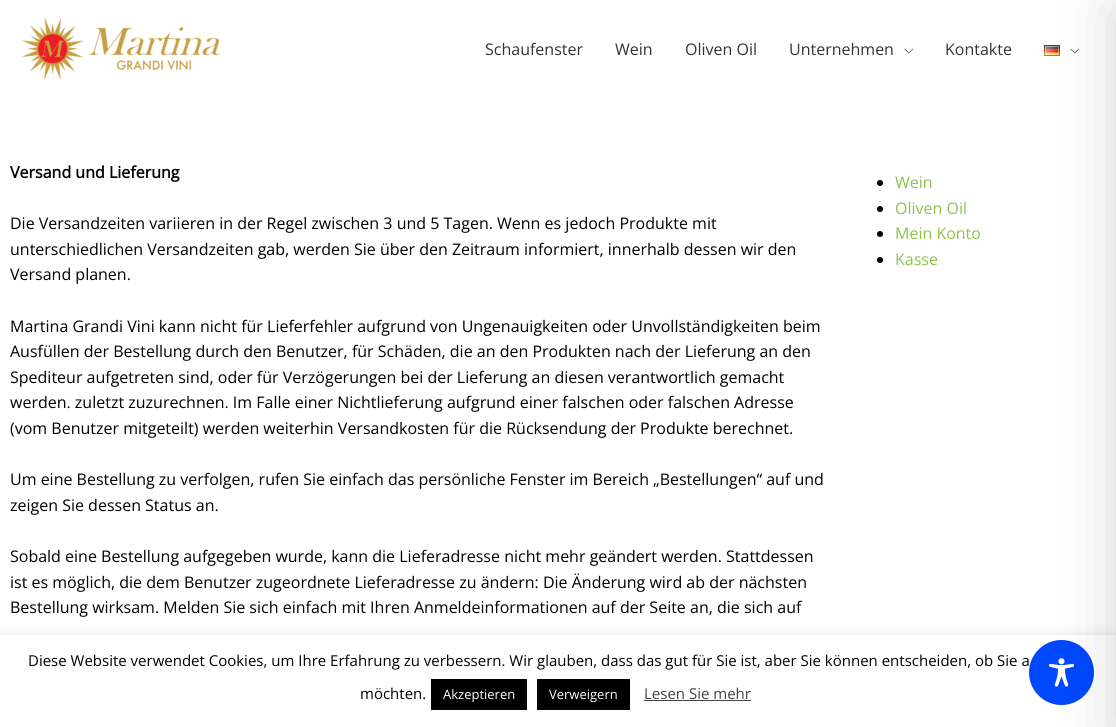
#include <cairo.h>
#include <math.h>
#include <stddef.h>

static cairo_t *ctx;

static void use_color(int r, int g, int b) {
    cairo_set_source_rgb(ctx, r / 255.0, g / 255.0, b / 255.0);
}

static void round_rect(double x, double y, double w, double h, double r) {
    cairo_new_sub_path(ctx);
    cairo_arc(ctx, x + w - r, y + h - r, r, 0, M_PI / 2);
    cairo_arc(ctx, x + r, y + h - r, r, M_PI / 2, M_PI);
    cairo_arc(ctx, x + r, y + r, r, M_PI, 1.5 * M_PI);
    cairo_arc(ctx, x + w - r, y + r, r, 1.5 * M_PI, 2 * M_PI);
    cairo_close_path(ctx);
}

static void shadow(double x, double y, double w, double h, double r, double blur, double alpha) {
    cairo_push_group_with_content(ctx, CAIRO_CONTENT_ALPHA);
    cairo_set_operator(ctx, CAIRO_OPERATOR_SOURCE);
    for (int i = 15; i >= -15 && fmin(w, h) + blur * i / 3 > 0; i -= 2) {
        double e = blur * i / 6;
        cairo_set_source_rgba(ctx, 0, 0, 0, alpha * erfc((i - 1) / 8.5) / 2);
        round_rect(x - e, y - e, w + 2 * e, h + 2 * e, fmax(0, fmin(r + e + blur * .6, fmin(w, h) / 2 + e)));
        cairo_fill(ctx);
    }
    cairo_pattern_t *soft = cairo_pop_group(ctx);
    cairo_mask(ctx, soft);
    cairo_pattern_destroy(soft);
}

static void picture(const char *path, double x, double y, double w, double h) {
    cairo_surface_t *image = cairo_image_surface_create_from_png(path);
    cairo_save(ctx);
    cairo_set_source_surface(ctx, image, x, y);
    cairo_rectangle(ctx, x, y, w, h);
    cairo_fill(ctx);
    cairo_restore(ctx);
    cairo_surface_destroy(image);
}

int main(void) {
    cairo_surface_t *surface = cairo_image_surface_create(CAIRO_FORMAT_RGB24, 1116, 727);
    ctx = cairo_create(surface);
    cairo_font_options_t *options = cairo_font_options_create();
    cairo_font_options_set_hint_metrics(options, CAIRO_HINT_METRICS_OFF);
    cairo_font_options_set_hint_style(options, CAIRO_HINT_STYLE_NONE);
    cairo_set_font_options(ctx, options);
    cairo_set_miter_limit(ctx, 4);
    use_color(255, 255, 255);
    cairo_paint(ctx);
    picture("img1.png", 21, 17, 199, 63);
    cairo_select_font_face(ctx, "Open Sans", CAIRO_FONT_SLANT_NORMAL, CAIRO_FONT_WEIGHT_NORMAL);
    cairo_set_font_size(ctx, 16);
    use_color(51, 51, 51);
    cairo_move_to(ctx, 485, 55);
    cairo_show_text(ctx, "Schaufenster");
    cairo_move_to(ctx, 615, 55);
    cairo_show_text(ctx, "Wein");
    cairo_move_to(ctx, 685, 55);
    cairo_show_text(ctx, "Oliven Oil");
    cairo_move_to(ctx, 789, 55);
    cairo_show_text(ctx, "Unternehmen");
    picture("img2.png", 904, 48, 9, 6);
    cairo_move_to(ctx, 945, 55);
    cairo_show_text(ctx, "Kontakte");
    picture("img3.png", 1044, 45, 16, 11);
    picture("img2.png", 1070, 48, 9, 6);
    cairo_select_font_face(ctx, "Open Sans", CAIRO_FONT_SLANT_NORMAL, CAIRO_FONT_WEIGHT_BOLD);
    use_color(0, 0, 0);
    cairo_move_to(ctx, 10, 178);
    cairo_show_text(ctx, "Versand und Lieferung");
    cairo_select_font_face(ctx, "Open Sans", CAIRO_FONT_SLANT_NORMAL, CAIRO_FONT_WEIGHT_NORMAL);
    cairo_move_to(ctx, 10, 229);
    cairo_show_text(ctx, "Die Versandzeiten variieren in der Regel zwischen 3 und 5 Tagen. Wenn es jedoch Produkte mit");
    cairo_move_to(ctx, 10, 255);
    cairo_show_text(ctx, "unterschiedlichen Versandzeiten gab, werden Sie über den Zeitraum informiert, innerhalb dessen wir den");
    cairo_move_to(ctx, 10, 280);
    cairo_show_text(ctx, "Versand planen.");
    cairo_move_to(ctx, 10, 332);
    cairo_show_text(ctx, "Martina Grandi Vini kann nicht für Lieferfehler aufgrund von Ungenauigkeiten oder Unvollständigkeiten beim");
    cairo_move_to(ctx, 10, 357);
    cairo_show_text(ctx, "Ausfüllen der Bestellung durch den Benutzer, für Schäden, die an den Produkten nach der Lieferung an den");
    cairo_move_to(ctx, 10, 383);
    cairo_show_text(ctx, "Spediteur aufgetreten sind, oder für Verzögerungen bei der Lieferung an diesen verantwortlich gemacht");
    cairo_move_to(ctx, 10, 408);
    cairo_show_text(ctx, "werden. zuletzt zuzurechnen. Im Falle einer Nichtlieferung aufgrund einer falschen oder falschen Adresse");
    cairo_move_to(ctx, 10, 434);
    cairo_show_text(ctx, "(vom Benutzer mitgeteilt) werden weiterhin Versandkosten für die Rücksendung der Produkte berechnet.");
    cairo_move_to(ctx, 10, 485);
    cairo_show_text(ctx, "Um eine Bestellung zu verfolgen, rufen Sie einfach das persönliche Fenster im Bereich „Bestellungen“ auf und");
    cairo_move_to(ctx, 10, 511);
    cairo_show_text(ctx, "zeigen Sie dessen Status an.");
    cairo_move_to(ctx, 10, 562);
    cairo_show_text(ctx, "Sobald eine Bestellung aufgegeben wurde, kann die Lieferadresse nicht mehr geändert werden. Stattdessen");
    cairo_move_to(ctx, 10, 588);
    cairo_show_text(ctx, "ist es möglich, die dem Benutzer zugeordnete Lieferadresse zu ändern: Die Änderung wird ab der nächsten");
    cairo_move_to(ctx, 10, 613);
    cairo_show_text(ctx, "Bestellung wirksam. Melden Sie sich einfach mit Ihren Anmeldeinformationen auf der Seite an, die sich auf");
    cairo_new_path(ctx);
    cairo_arc(ctx, 880, 183, 3, 0, 2 * M_PI);
    cairo_fill(ctx);
    use_color(139, 195, 74);
    cairo_move_to(ctx, 895, 188);
    cairo_show_text(ctx, "Wein");
    use_color(0, 0, 0);
    cairo_new_path(ctx);
    cairo_arc(ctx, 880, 209, 3, 0, 2 * M_PI);
    cairo_fill(ctx);
    use_color(139, 195, 74);
    cairo_move_to(ctx, 895, 214);
    cairo_show_text(ctx, "Oliven Oil");
    use_color(0, 0, 0);
    cairo_new_path(ctx);
    cairo_arc(ctx, 880, 234, 3, 0, 2 * M_PI);
    cairo_fill(ctx);
    use_color(139, 195, 74);
    cairo_move_to(ctx, 895, 239);
    cairo_show_text(ctx, "Mein Konto");
    use_color(0, 0, 0);
    cairo_new_path(ctx);
    cairo_arc(ctx, 880, 260, 3, 0, 2 * M_PI);
    cairo_fill(ctx);
    use_color(139, 195, 74);
    cairo_move_to(ctx, 895, 265);
    cairo_show_text(ctx, "Kasse");
    use_color(172, 171, 171);
    shadow(0, 634, 1116, 92, 0, 5, 0.3);
    use_color(255, 255, 255);
    cairo_rectangle(ctx, 0, 635, 1116, 92);
    cairo_fill(ctx);
    use_color(0, 72, 254);
    cairo_arc(ctx, 1061.5, 672.5, 32.5, 0, 2 * M_PI);
    cairo_fill(ctx);
    picture("img4.png", 1049, 658, 25, 29);
    use_color(0, 0, 0);
    shadow(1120, 10, 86, 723, 0, 30, 0.2);
    cairo_set_font_size(ctx, 15);
    use_color(0, 0, 0);
    cairo_move_to(ctx, 28, 666);
    cairo_show_text(ctx, "Diese Website verwendet Cookies, um Ihre Erfahrung zu verbessern. Wir glauben, dass das gut für Sie ist, aber Sie können entscheiden, ob Sie a");
    cairo_move_to(ctx, 360, 699);
    cairo_show_text(ctx, "möchten.");
    cairo_rectangle(ctx, 431, 679, 96, 31);
    cairo_fill(ctx);
    cairo_set_font_size(ctx, 13);
    use_color(255, 255, 255);
    cairo_move_to(ctx, 443, 699);
    cairo_show_text(ctx, "Akzeptieren");
    use_color(0, 0, 0);
    cairo_rectangle(ctx, 537, 679, 93, 31);
    cairo_fill(ctx);
    use_color(255, 255, 255);
    cairo_move_to(ctx, 549, 699);
    cairo_show_text(ctx, "Verweigern");
    cairo_set_font_size(ctx, 15);
    use_color(68, 68, 68);
    cairo_move_to(ctx, 644, 699);
    cairo_show_text(ctx, "Lesen Sie mehr");
    cairo_rectangle(ctx, 644, 700, 107, 1);
    cairo_fill(ctx);
    cairo_surface_write_to_png(surface, "result.png");
    cairo_font_options_destroy(options);
    cairo_destroy(ctx);
    cairo_surface_destroy(surface);
    return 0;
}
